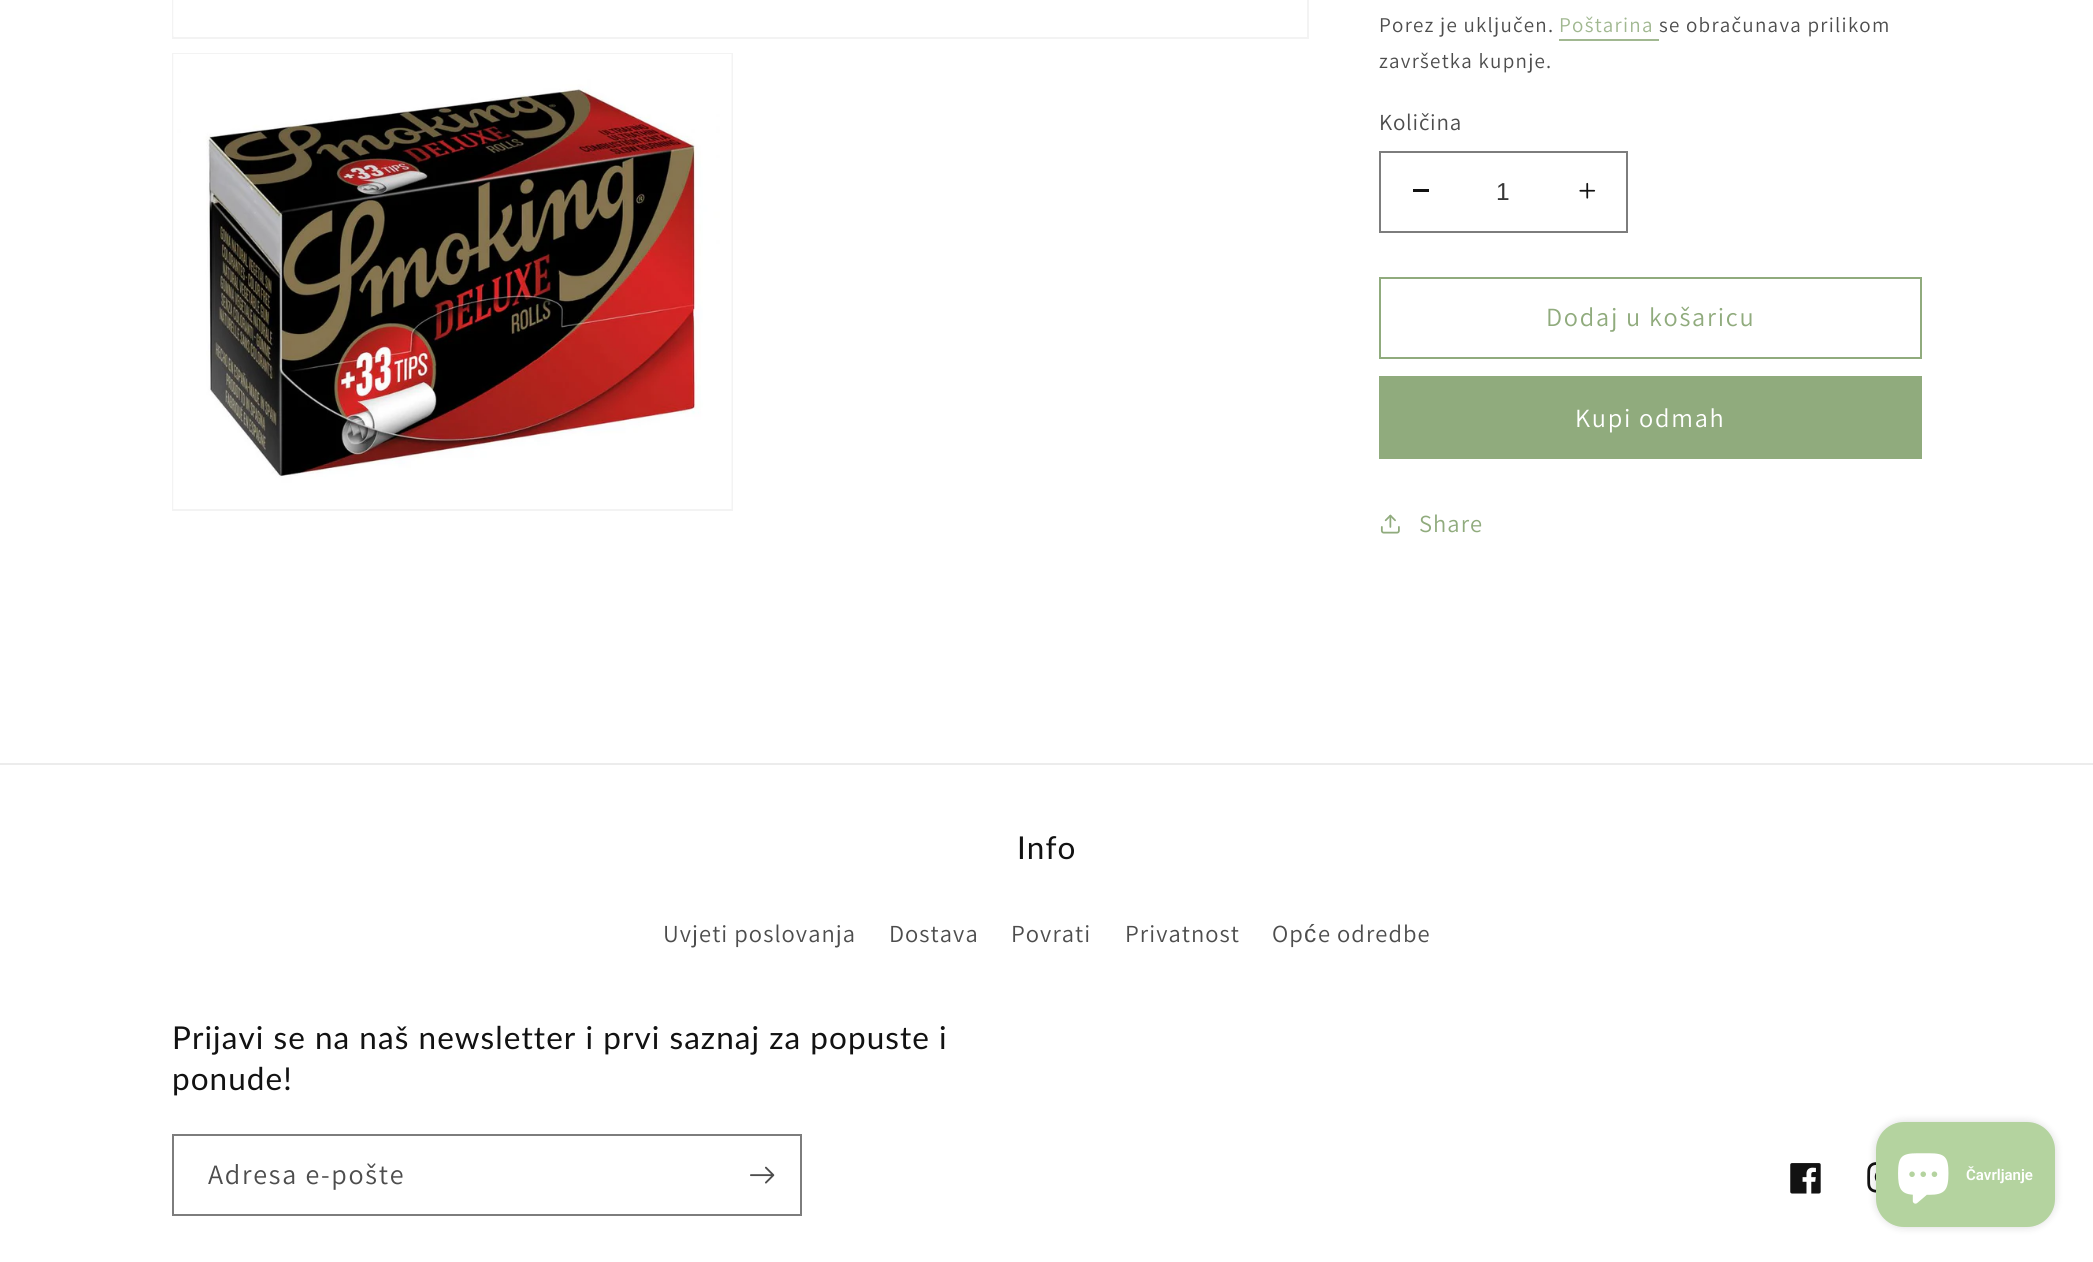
#include <cairo.h>
#include <math.h>
#include <stddef.h>

static cairo_t *ctx;

static void use_color(int r, int g, int b) {
    cairo_set_source_rgb(ctx, r / 255.0, g / 255.0, b / 255.0);
}

static void spaced_text(double x, double y, const char *s, double letter, double word) {
    cairo_move_to(ctx, x, y);
    while (*s) {
        char ch[5] = {0};
        int n = 0;
        do ch[n++] = *s++; while ((*s & 0xC0) == 0x80);
        cairo_show_text(ctx, ch);
        cairo_rel_move_to(ctx, letter + word * (*ch == ' '), 0);
    }
}

static void round_rect(double x, double y, double w, double h, double r) {
    cairo_new_sub_path(ctx);
    cairo_arc(ctx, x + w - r, y + h - r, r, 0, M_PI / 2);
    cairo_arc(ctx, x + r, y + h - r, r, M_PI / 2, M_PI);
    cairo_arc(ctx, x + r, y + r, r, M_PI, 1.5 * M_PI);
    cairo_arc(ctx, x + w - r, y + r, r, 1.5 * M_PI, 2 * M_PI);
    cairo_close_path(ctx);
}

static void shadow(double x, double y, double w, double h, double r, double blur, double alpha) {
    cairo_push_group_with_content(ctx, CAIRO_CONTENT_ALPHA);
    cairo_set_operator(ctx, CAIRO_OPERATOR_SOURCE);
    for (int i = 15; i >= -15 && fmin(w, h) + blur * i / 3 > 0; i -= 2) {
        double e = blur * i / 6;
        cairo_set_source_rgba(ctx, 0, 0, 0, alpha * erfc((i - 1) / 8.5) / 2);
        round_rect(x - e, y - e, w + 2 * e, h + 2 * e, fmax(0, fmin(r + e + blur * .6, fmin(w, h) / 2 + e)));
        cairo_fill(ctx);
    }
    cairo_pattern_t *soft = cairo_pop_group(ctx);
    cairo_mask(ctx, soft);
    cairo_pattern_destroy(soft);
}

static void picture(const char *path, double x, double y, double w, double h) {
    cairo_surface_t *image = cairo_image_surface_create_from_png(path);
    cairo_save(ctx);
    cairo_set_source_surface(ctx, image, x, y);
    cairo_rectangle(ctx, x, y, w, h);
    cairo_fill(ctx);
    cairo_restore(ctx);
    cairo_surface_destroy(image);
}

int main(void) {
    cairo_surface_t *surface = cairo_image_surface_create(CAIRO_FORMAT_RGB24, 2093, 1262);
    ctx = cairo_create(surface);
    cairo_font_options_t *options = cairo_font_options_create();
    cairo_font_options_set_hint_metrics(options, CAIRO_HINT_METRICS_OFF);
    cairo_font_options_set_hint_style(options, CAIRO_HINT_STYLE_NONE);
    cairo_set_font_options(ctx, options);
    cairo_set_miter_limit(ctx, 4);
    use_color(255, 255, 255);
    cairo_paint(ctx);
    cairo_rectangle(ctx, 173, -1, 1135, 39);
    use_color(243, 243, 243);
    cairo_stroke(ctx);
    picture("img1.png", 173, 0, 1, 37);
    cairo_rectangle(ctx, 173, 54, 559, 456);
    cairo_stroke(ctx);
    picture("img2.png", 173, 54, 559, 455);
    cairo_select_font_face(ctx, "Assistant", CAIRO_FONT_SLANT_NORMAL, CAIRO_FONT_WEIGHT_NORMAL);
    cairo_set_font_size(ctx, 21);
    use_color(77, 77, 77);
    spaced_text(1379, 32, "Porez je uključen.", 1.25, 0);
    use_color(161, 184, 145);
    spaced_text(1559, 32, "Poštarina", 1.25, 0);
    cairo_rectangle(ctx, 1559, 39, 100, 2);
    cairo_fill(ctx);
    use_color(77, 77, 77);
    spaced_text(1659, 32, "se obračunava prilikom", 1.25, 0);
    spaced_text(1379, 68, "završetka kupnje.", 1.25, 0);
    cairo_set_font_size(ctx, 23);
    spaced_text(1379, 130, "Količina", 0.75, 0);
    use_color(18, 18, 18);
    cairo_rectangle(ctx, 1413, 189, 16, 3);
    cairo_fill(ctx);
    picture("img3.png", 1579, 182, 17, 17);
    cairo_rectangle(ctx, 1380, 152, 247, 80);
    use_color(125, 125, 125);
    cairo_stroke(ctx);
    cairo_select_font_face(ctx, "Liberation Sans", CAIRO_FONT_SLANT_NORMAL, CAIRO_FONT_WEIGHT_NORMAL);
    cairo_set_font_size(ctx, 24.5);
    use_color(54, 54, 54);
    cairo_move_to(ctx, 1496, 200);
    cairo_show_text(ctx, "1");
    cairo_rectangle(ctx, 1380, 278, 541, 80);
    use_color(144, 171, 125);
    cairo_stroke(ctx);
    cairo_select_font_face(ctx, "Assistant", CAIRO_FONT_SLANT_NORMAL, CAIRO_FONT_WEIGHT_NORMAL);
    cairo_set_font_size(ctx, 26.25);
    spaced_text(1546, 326, "Dodaj u košaricu", 1.75, 0);
    cairo_rectangle(ctx, 1379, 376, 543, 83);
    cairo_fill(ctx);
    use_color(255, 255, 255);
    spaced_text(1575, 427, "Kupi odmah", 1.75, 0);
    picture("img4.png", 1380, 514, 20, 20);
    cairo_set_font_size(ctx, 24.5);
    use_color(144, 171, 125);
    spaced_text(1419, 532, "Share", 1.05, 0);
    use_color(236, 236, 236);
    cairo_rectangle(ctx, 0, 763, 2093, 2);
    cairo_fill(ctx);
    cairo_select_font_face(ctx, "Lato", CAIRO_FONT_SLANT_NORMAL, CAIRO_FONT_WEIGHT_NORMAL);
    cairo_set_font_size(ctx, 31.5);
    use_color(18, 18, 18);
    spaced_text(1017, 859, "Info", 1.05, 0);
    cairo_select_font_face(ctx, "Assistant", CAIRO_FONT_SLANT_NORMAL, CAIRO_FONT_WEIGHT_NORMAL);
    cairo_set_font_size(ctx, 24.5);
    use_color(77, 77, 77);
    spaced_text(663, 942, "Uvjeti poslovanja", 1.05, 0);
    spaced_text(889, 942, "Dostava", 1.05, 0);
    spaced_text(1011, 942, "Povrati", 1.05, 0);
    spaced_text(1125, 942, "Privatnost", 1.05, 0);
    spaced_text(1272, 942, "Op", 1.05, 0);
    cairo_select_font_face(ctx, "Liberation Sans", CAIRO_FONT_SLANT_NORMAL, CAIRO_FONT_WEIGHT_NORMAL);
    spaced_text(1304, 942, "ć", 1.05, 0);
    cairo_select_font_face(ctx, "Assistant", CAIRO_FONT_SLANT_NORMAL, CAIRO_FONT_WEIGHT_NORMAL);
    spaced_text(1318, 942, "e odredbe", 1.05, 0);
    cairo_select_font_face(ctx, "Lato", CAIRO_FONT_SLANT_NORMAL, CAIRO_FONT_WEIGHT_NORMAL);
    cairo_set_font_size(ctx, 31.5);
    use_color(18, 18, 18);
    spaced_text(172, 1049, "Prijavi se na naš newsletter i prvi saznaj za popuste i", 1.05, 0);
    spaced_text(172, 1090, "ponude!", 1.05, 0);
    cairo_rectangle(ctx, 173, 1135, 628, 80);
    use_color(125, 125, 125);
    cairo_stroke(ctx);
    cairo_select_font_face(ctx, "Assistant", CAIRO_FONT_SLANT_NORMAL, CAIRO_FONT_WEIGHT_NORMAL);
    cairo_set_font_size(ctx, 28);
    use_color(77, 77, 77);
    spaced_text(208, 1184, "Adresa e-pošte", 1.75, 0);
    picture("img5.png", 750, 1166, 25, 18);
    picture("img6.png", 1790, 1163, 31, 31);
    picture("img7.png", 1867, 1162, 9, 31);
    use_color(0, 0, 0);
    shadow(1876, 1122, 179, 105, 28, 4.5, 0.15);
    use_color(180, 211, 159);
    round_rect(1876, 1122, 179, 105, 28);
    cairo_fill(ctx);
    picture("img8.png", 1898, 1153, 51, 51);
    cairo_select_font_face(ctx, "Roboto SemiBold", CAIRO_FONT_SLANT_NORMAL, CAIRO_FONT_WEIGHT_NORMAL);
    cairo_set_font_size(ctx, 15);
    use_color(255, 255, 255);
    cairo_move_to(ctx, 1966, 1180);
    cairo_show_text(ctx, "Čavrljanje");
    cairo_surface_write_to_png(surface, "result.png");
    cairo_font_options_destroy(options);
    cairo_destroy(ctx);
    cairo_surface_destroy(surface);
    return 0;
}
